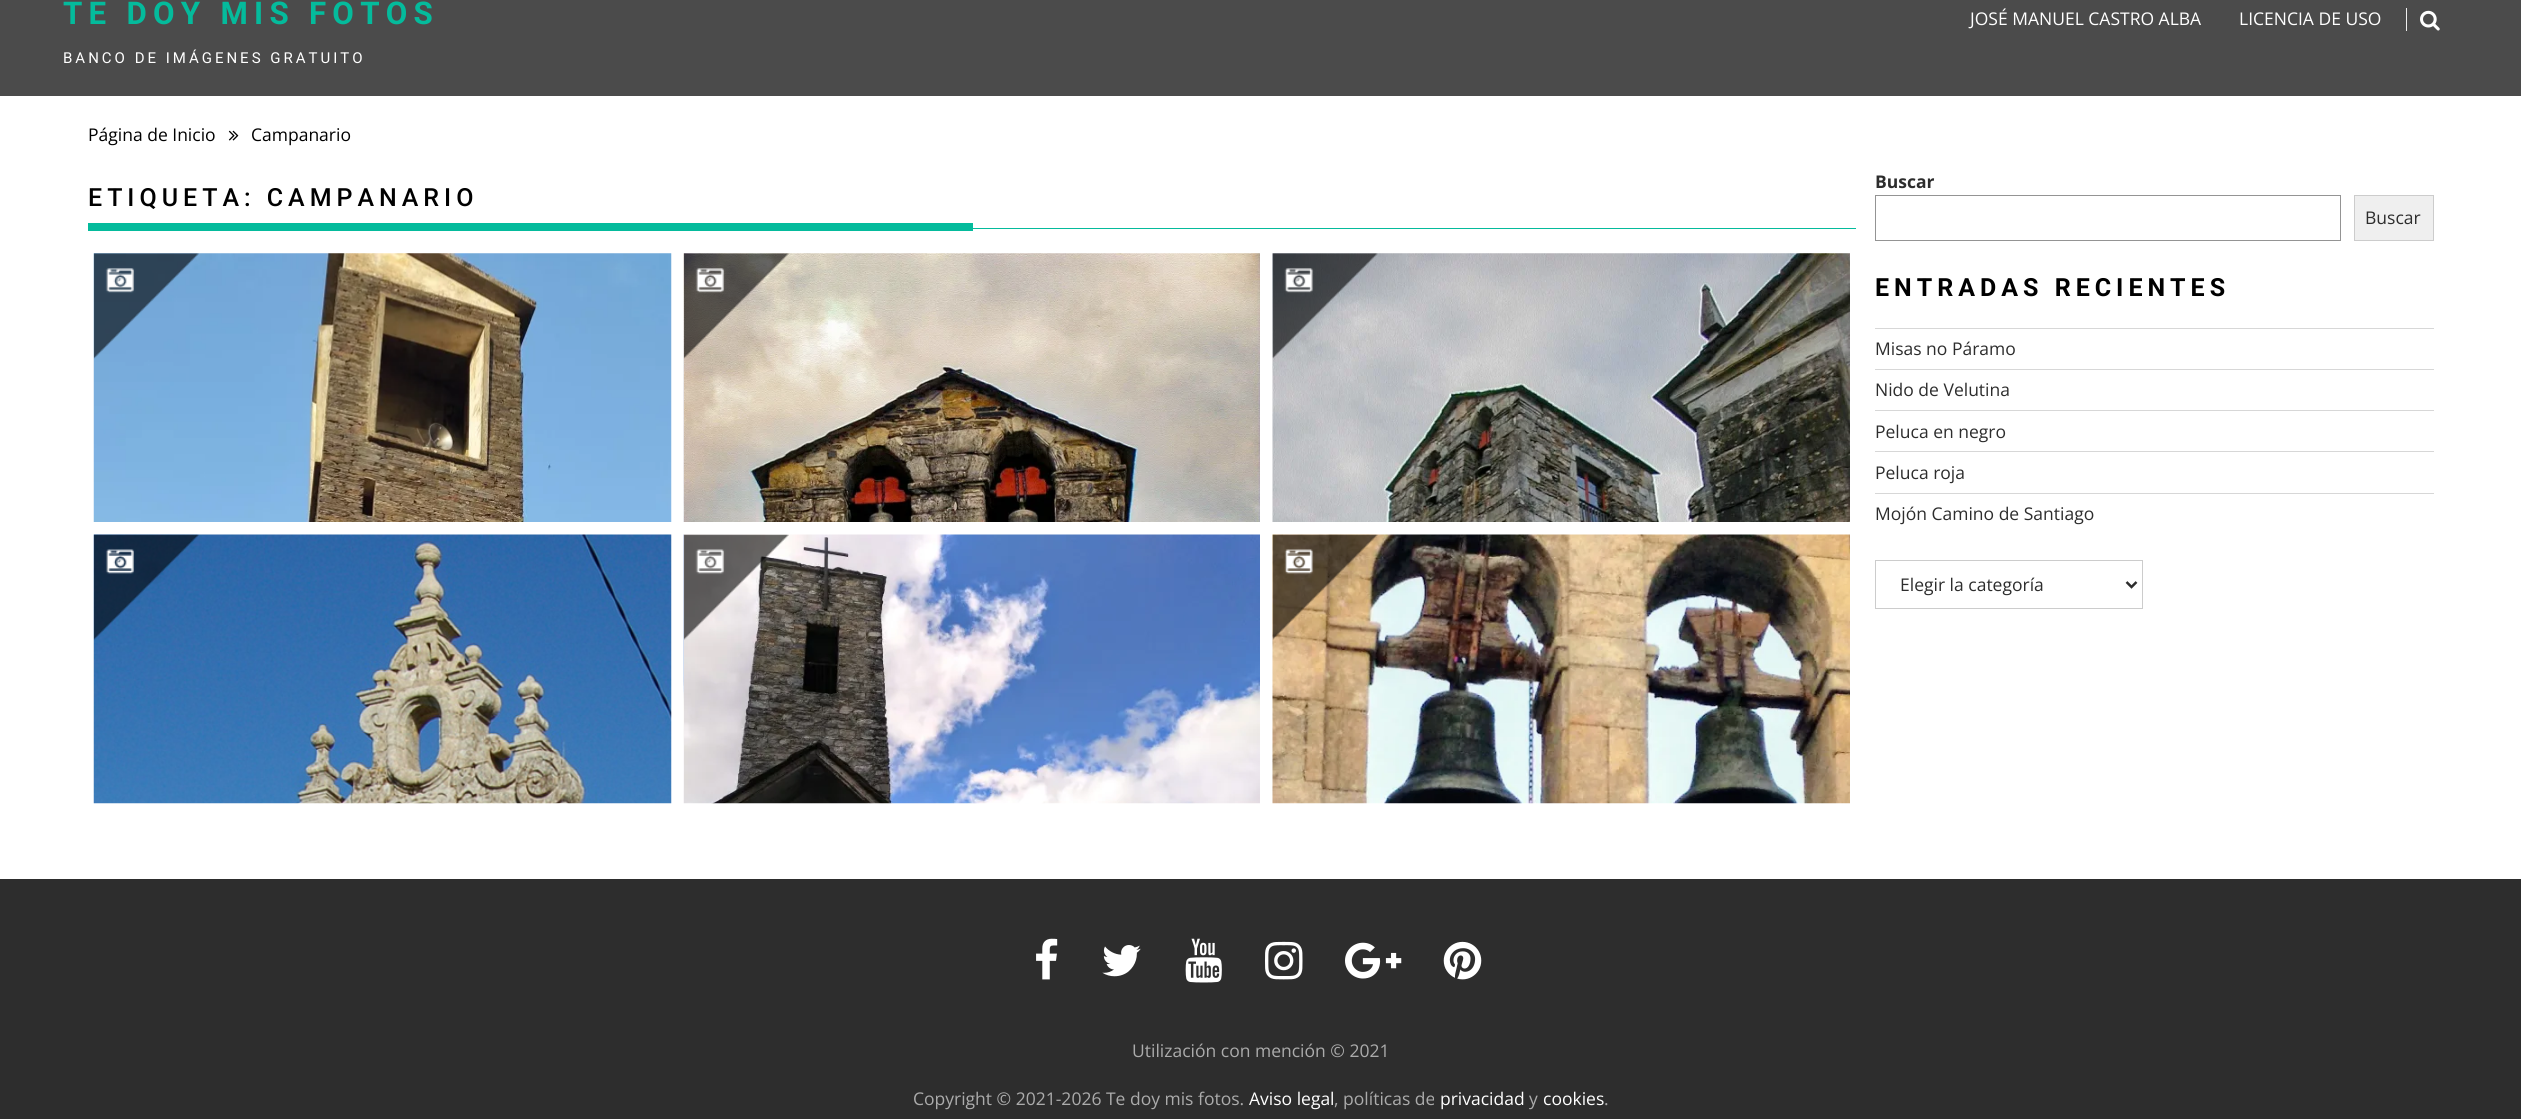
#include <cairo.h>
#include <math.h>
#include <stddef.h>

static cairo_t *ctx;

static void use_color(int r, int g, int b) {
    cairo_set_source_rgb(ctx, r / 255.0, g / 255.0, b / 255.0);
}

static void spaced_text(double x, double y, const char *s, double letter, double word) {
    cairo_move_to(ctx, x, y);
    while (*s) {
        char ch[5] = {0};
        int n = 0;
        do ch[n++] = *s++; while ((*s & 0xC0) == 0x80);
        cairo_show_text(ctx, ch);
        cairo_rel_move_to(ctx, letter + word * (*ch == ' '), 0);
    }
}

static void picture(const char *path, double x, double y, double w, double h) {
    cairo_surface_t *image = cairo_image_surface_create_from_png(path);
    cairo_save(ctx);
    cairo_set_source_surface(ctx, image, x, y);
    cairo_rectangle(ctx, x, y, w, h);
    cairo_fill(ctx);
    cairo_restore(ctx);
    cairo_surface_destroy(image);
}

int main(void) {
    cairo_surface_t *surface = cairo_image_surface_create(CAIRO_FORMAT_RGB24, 2521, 1119);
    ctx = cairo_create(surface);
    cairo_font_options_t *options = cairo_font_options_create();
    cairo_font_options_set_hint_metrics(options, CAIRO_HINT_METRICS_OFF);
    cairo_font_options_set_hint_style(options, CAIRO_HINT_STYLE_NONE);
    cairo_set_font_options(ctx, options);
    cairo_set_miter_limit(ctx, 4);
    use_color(255, 255, 255);
    cairo_paint(ctx);
    use_color(75, 75, 75);
    cairo_rectangle(ctx, 0, 0, 2521, 96);
    cairo_fill(ctx);
    cairo_select_font_face(ctx, "Roboto", CAIRO_FONT_SLANT_NORMAL, CAIRO_FONT_WEIGHT_BOLD);
    cairo_set_font_size(ctx, 31.25);
    use_color(4, 187, 156);
    spaced_text(63, 24, "TE DOY MIS FOTOS", 6.25, 0);
    cairo_select_font_face(ctx, "Roboto", CAIRO_FONT_SLANT_NORMAL, CAIRO_FONT_WEIGHT_NORMAL);
    cairo_set_font_size(ctx, 15);
    use_color(255, 255, 255);
    spaced_text(63, 63, "BANCO DE IMÁGENES GRATUITO", 3, 0);
    cairo_select_font_face(ctx, "Open Sans", CAIRO_FONT_SLANT_NORMAL, CAIRO_FONT_WEIGHT_NORMAL);
    cairo_set_font_size(ctx, 17.5);
    cairo_move_to(ctx, 1970, 25);
    cairo_show_text(ctx, "JOSÉ MANUEL CASTRO ALBA");
    cairo_move_to(ctx, 2239, 25);
    cairo_show_text(ctx, "LICENCIA DE USO");
    use_color(238, 238, 238);
    cairo_rectangle(ctx, 2406, 8, 1, 23);
    cairo_fill(ctx);
    picture("img1.png", 2420, 10, 20, 21);
    use_color(0, 0, 0);
    cairo_move_to(ctx, 88, 141);
    cairo_show_text(ctx, "Página de Inicio");
    picture("img2.png", 228, 130, 11, 11);
    cairo_move_to(ctx, 251, 141);
    cairo_show_text(ctx, "Campanario");
    use_color(4, 187, 156);
    cairo_rectangle(ctx, 973, 228, 883, 1);
    cairo_fill(ctx);
    cairo_select_font_face(ctx, "Roboto Medium", CAIRO_FONT_SLANT_NORMAL, CAIRO_FONT_WEIGHT_NORMAL);
    cairo_set_font_size(ctx, 25);
    use_color(0, 0, 0);
    spaced_text(88, 206, "ETIQUETA: CAMPANARIO", 5, 0);
    use_color(4, 187, 156);
    cairo_rectangle(ctx, 88, 223, 885, 8);
    cairo_fill(ctx);
    picture("img3.png", 93, 253, 579, 269);
    picture("img4.png", 93, 253, 106, 106);
    picture("img5.png", 683, 253, 577, 269);
    picture("img6.png", 683, 253, 106, 106);
    picture("img7.png", 1272, 253, 578, 269);
    picture("img8.png", 1272, 253, 106, 106);
    picture("img9.png", 93, 534, 579, 270);
    picture("img10.png", 93, 534, 106, 106);
    picture("img11.png", 683, 534, 577, 270);
    picture("img12.png", 683, 534, 106, 106);
    picture("img13.png", 1272, 534, 578, 270);
    picture("img14.png", 1272, 534, 106, 106);
    cairo_select_font_face(ctx, "Open Sans", CAIRO_FONT_SLANT_NORMAL, CAIRO_FONT_WEIGHT_BOLD);
    cairo_set_font_size(ctx, 17.5);
    use_color(45, 45, 45);
    cairo_move_to(ctx, 1875, 188);
    cairo_show_text(ctx, "Buscar");
    cairo_rectangle(ctx, 1875.5, 195.5, 465, 45);
    use_color(148, 148, 148);
    cairo_set_line_width(ctx, 1);
    cairo_stroke(ctx);
    use_color(239, 239, 239);
    cairo_rectangle(ctx, 2354.5, 195.5, 79, 45);
    cairo_fill_preserve(ctx);
    use_color(204, 204, 204);
    cairo_stroke(ctx);
    cairo_select_font_face(ctx, "Open Sans", CAIRO_FONT_SLANT_NORMAL, CAIRO_FONT_WEIGHT_NORMAL);
    use_color(45, 45, 45);
    cairo_move_to(ctx, 2365, 224);
    cairo_show_text(ctx, "Buscar");
    cairo_select_font_face(ctx, "Roboto", CAIRO_FONT_SLANT_NORMAL, CAIRO_FONT_WEIGHT_BOLD);
    cairo_set_font_size(ctx, 25);
    use_color(0, 0, 0);
    spaced_text(1875, 296, "ENTRADAS RECIENTES", 5, 0);
    use_color(215, 215, 215);
    cairo_rectangle(ctx, 1875, 328, 559, 1);
    cairo_fill(ctx);
    cairo_select_font_face(ctx, "Open Sans", CAIRO_FONT_SLANT_NORMAL, CAIRO_FONT_WEIGHT_NORMAL);
    cairo_set_font_size(ctx, 17.5);
    use_color(45, 45, 45);
    cairo_move_to(ctx, 1875, 355);
    cairo_show_text(ctx, "Misas no Páramo");
    use_color(215, 215, 215);
    cairo_rectangle(ctx, 1875, 369, 559, 1);
    cairo_fill(ctx);
    use_color(45, 45, 45);
    cairo_move_to(ctx, 1875, 396);
    cairo_show_text(ctx, "Nido de Velutina");
    use_color(215, 215, 215);
    cairo_rectangle(ctx, 1875, 410, 559, 1);
    cairo_fill(ctx);
    use_color(45, 45, 45);
    cairo_move_to(ctx, 1875, 438);
    cairo_show_text(ctx, "Peluca en negro");
    use_color(215, 215, 215);
    cairo_rectangle(ctx, 1875, 451, 559, 1);
    cairo_fill(ctx);
    use_color(45, 45, 45);
    cairo_move_to(ctx, 1875, 479);
    cairo_show_text(ctx, "Peluca roja");
    use_color(215, 215, 215);
    cairo_rectangle(ctx, 1875, 493, 559, 1);
    cairo_fill(ctx);
    use_color(45, 45, 45);
    cairo_move_to(ctx, 1875, 520);
    cairo_show_text(ctx, "Mojón Camino de Santiago");
    cairo_rectangle(ctx, 1875.5, 560.5, 267, 48);
    use_color(204, 204, 204);
    cairo_stroke(ctx);
    cairo_new_path(ctx);
    cairo_move_to(ctx, 2126.5, 582);
    cairo_line_to(ctx, 2131.5, 587);
    cairo_line_to(ctx, 2136.5, 582);
    use_color(45, 45, 45);
    cairo_set_line_width(ctx, 2.5);
    cairo_stroke(ctx);
    cairo_move_to(ctx, 1900, 591);
    cairo_show_text(ctx, "Elegir la categoría");
    cairo_rectangle(ctx, 0, 879, 2521, 240);
    cairo_fill(ctx);
    picture("img15.png", 1036, 938, 22, 42);
    picture("img16.png", 1102, 945, 39, 32);
    picture("img17.png", 1185, 938, 37, 45);
    picture("img18.png", 1265, 941, 38, 39);
    picture("img19.png", 1345, 942, 57, 37);
    picture("img20.png", 1443, 941, 39, 39);
    use_color(171, 171, 171);
    cairo_move_to(ctx, 1132, 1057);
    cairo_show_text(ctx, "Utilización con mención © 2021");
    cairo_move_to(ctx, 913, 1105);
    cairo_show_text(ctx, "Copyright © 2021-2026 Te doy mis fotos.");
    use_color(255, 255, 255);
    cairo_move_to(ctx, 1249, 1105);
    cairo_show_text(ctx, "Aviso legal");
    use_color(171, 171, 171);
    cairo_move_to(ctx, 1334, 1105);
    cairo_show_text(ctx, ", políticas de");
    use_color(255, 255, 255);
    cairo_move_to(ctx, 1440, 1105);
    cairo_show_text(ctx, "privacidad");
    use_color(171, 171, 171);
    cairo_move_to(ctx, 1529, 1105);
    cairo_show_text(ctx, "y");
    use_color(255, 255, 255);
    cairo_move_to(ctx, 1543, 1105);
    cairo_show_text(ctx, "cookies");
    use_color(171, 171, 171);
    cairo_move_to(ctx, 1604, 1105);
    cairo_show_text(ctx, ".");
    cairo_surface_write_to_png(surface, "result.png");
    cairo_font_options_destroy(options);
    cairo_destroy(ctx);
    cairo_surface_destroy(surface);
    return 0;
}
